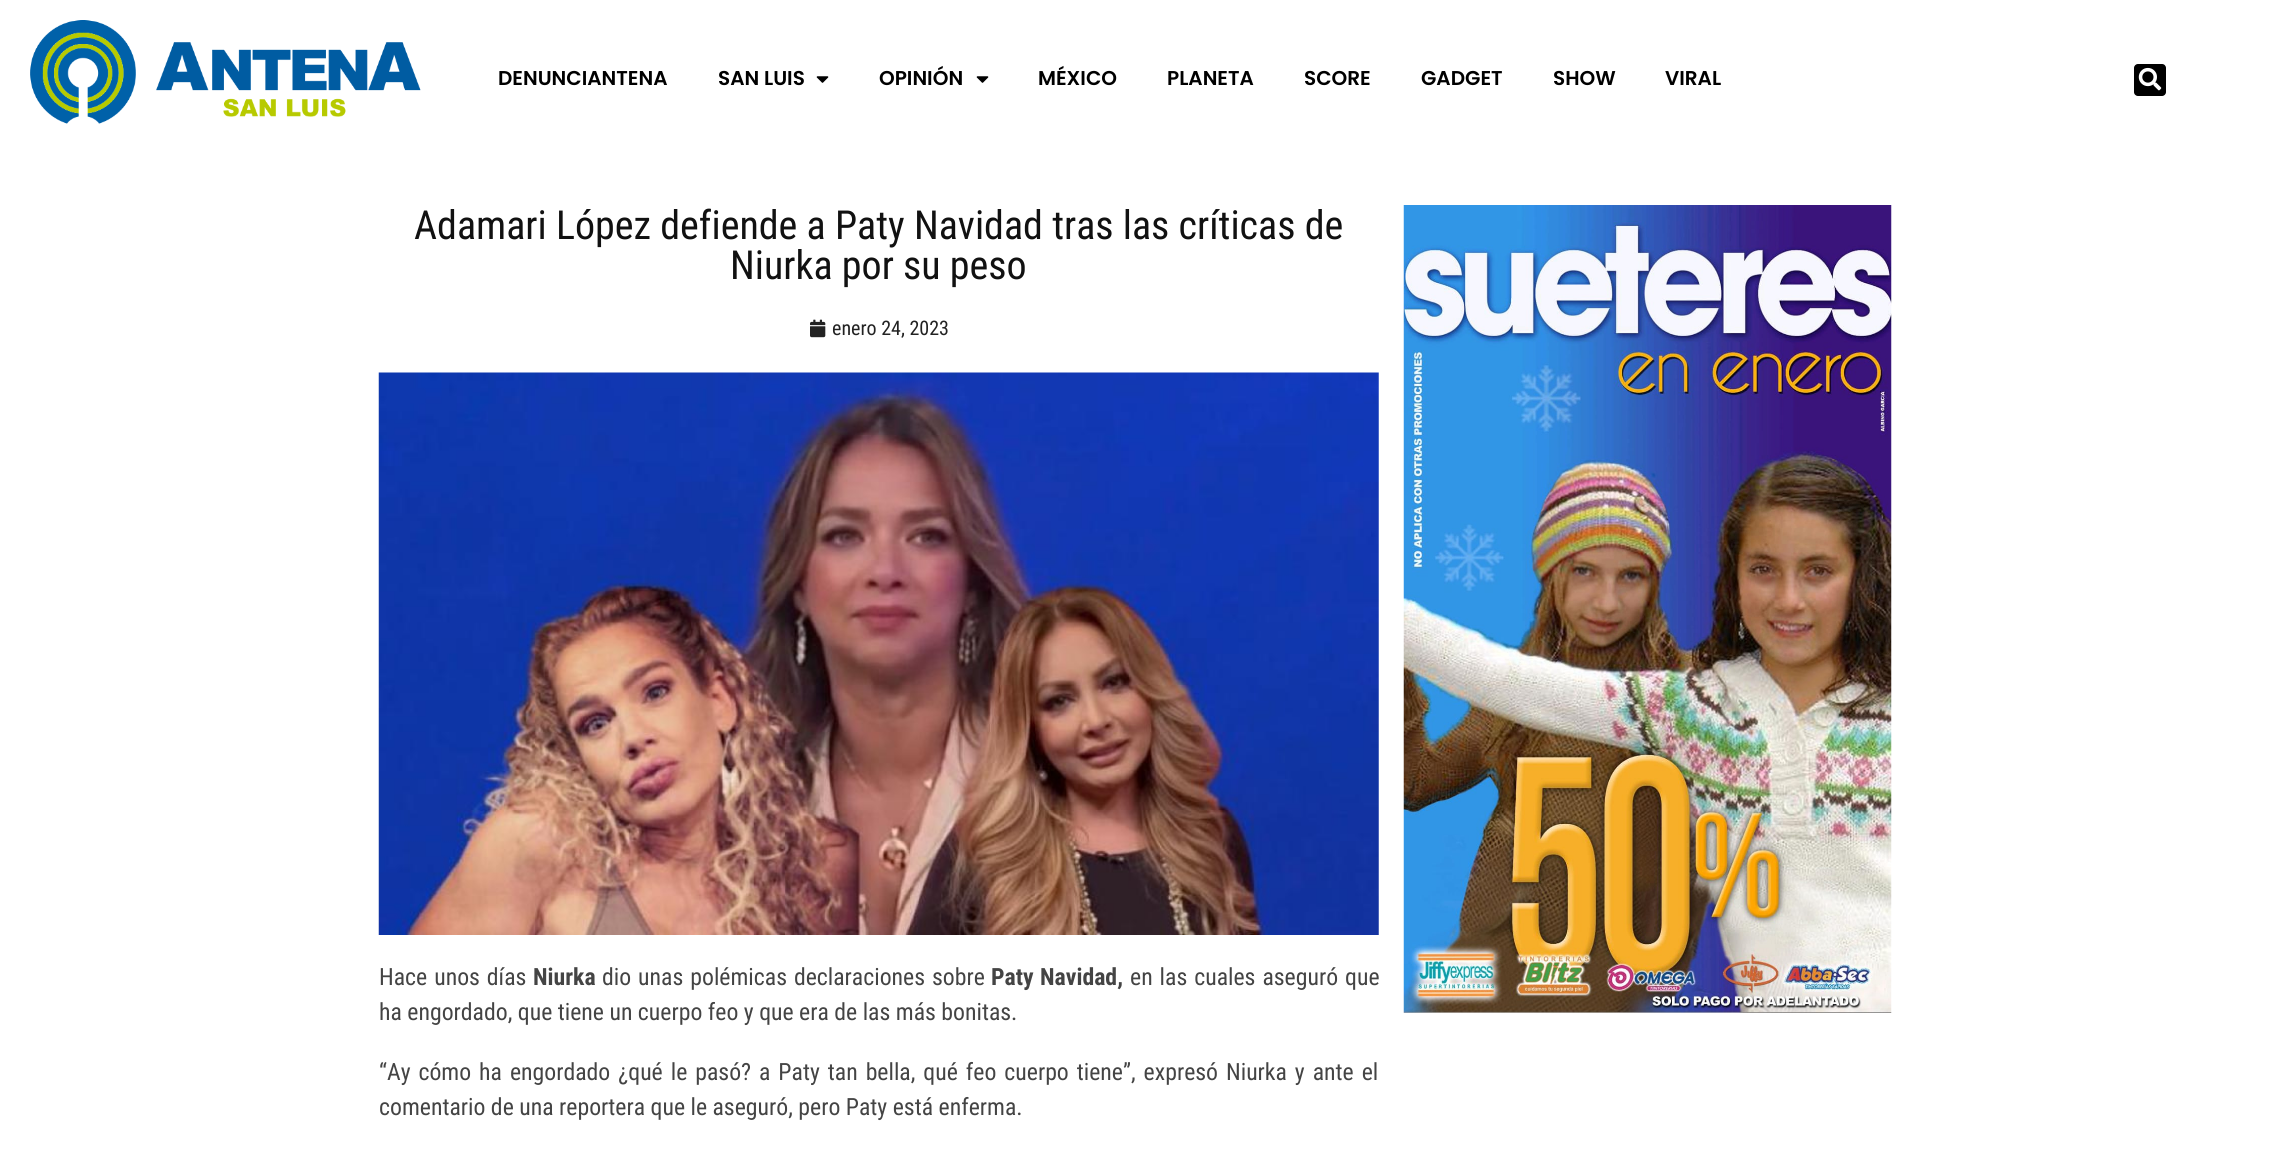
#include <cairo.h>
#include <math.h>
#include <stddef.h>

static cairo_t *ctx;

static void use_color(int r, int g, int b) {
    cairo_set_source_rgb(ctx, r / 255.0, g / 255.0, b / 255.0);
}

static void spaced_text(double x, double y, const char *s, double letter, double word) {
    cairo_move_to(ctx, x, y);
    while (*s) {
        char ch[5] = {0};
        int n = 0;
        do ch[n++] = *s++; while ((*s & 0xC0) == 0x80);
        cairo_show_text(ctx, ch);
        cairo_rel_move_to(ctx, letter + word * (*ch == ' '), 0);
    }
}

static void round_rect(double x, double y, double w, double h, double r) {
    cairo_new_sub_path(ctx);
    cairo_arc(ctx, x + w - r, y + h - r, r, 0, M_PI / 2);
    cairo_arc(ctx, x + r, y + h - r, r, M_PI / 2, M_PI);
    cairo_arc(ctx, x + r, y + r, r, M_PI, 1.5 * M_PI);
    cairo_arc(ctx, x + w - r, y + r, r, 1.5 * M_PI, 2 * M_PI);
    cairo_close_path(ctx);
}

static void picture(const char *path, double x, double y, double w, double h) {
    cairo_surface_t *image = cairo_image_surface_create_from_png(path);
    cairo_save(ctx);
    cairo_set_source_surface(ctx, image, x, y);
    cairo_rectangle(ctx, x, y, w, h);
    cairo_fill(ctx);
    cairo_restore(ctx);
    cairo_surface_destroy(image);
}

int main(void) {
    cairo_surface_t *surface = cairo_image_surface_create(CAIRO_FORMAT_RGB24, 2270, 1157);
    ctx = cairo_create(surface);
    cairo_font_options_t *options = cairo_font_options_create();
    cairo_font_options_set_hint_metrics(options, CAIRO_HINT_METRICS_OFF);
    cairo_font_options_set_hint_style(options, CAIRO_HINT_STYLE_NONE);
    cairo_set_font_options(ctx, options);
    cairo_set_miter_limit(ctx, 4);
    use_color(255, 255, 255);
    cairo_paint(ctx);
    picture("img1.png", 30, 20, 391, 104);
    cairo_select_font_face(ctx, "Poppins SemiBold", CAIRO_FONT_SLANT_NORMAL, CAIRO_FONT_WEIGHT_NORMAL);
    cairo_set_font_size(ctx, 20);
    use_color(0, 0, 0);
    cairo_move_to(ctx, 498, 85);
    cairo_show_text(ctx, "DENUNCIANTENA");
    cairo_move_to(ctx, 718, 85);
    cairo_show_text(ctx, "SAN LUIS");
    picture("img2.png", 816, 76, 13, 7);
    cairo_move_to(ctx, 879, 85);
    cairo_show_text(ctx, "OPINIÓN");
    picture("img2.png", 976, 76, 13, 7);
    cairo_move_to(ctx, 1038, 85);
    cairo_show_text(ctx, "MÉXICO");
    cairo_move_to(ctx, 1167, 85);
    cairo_show_text(ctx, "PLANETA");
    cairo_move_to(ctx, 1304, 85);
    cairo_show_text(ctx, "SCORE");
    cairo_move_to(ctx, 1421, 85);
    cairo_show_text(ctx, "GADGET");
    cairo_move_to(ctx, 1553, 85);
    cairo_show_text(ctx, "SHOW");
    cairo_move_to(ctx, 1665, 85);
    cairo_show_text(ctx, "VIRAL");
    round_rect(2134, 64, 32, 32, 4);
    cairo_fill(ctx);
    picture("img3.png", 2138, 67, 24, 24);
    cairo_select_font_face(ctx, "Roboto Condensed", CAIRO_FONT_SLANT_NORMAL, CAIRO_FONT_WEIGHT_NORMAL);
    cairo_set_font_size(ctx, 40);
    use_color(17, 17, 17);
    cairo_move_to(ctx, 414, 239);
    cairo_show_text(ctx, "Adamari López defiende a Paty Navidad tras las críticas de");
    cairo_move_to(ctx, 730, 279);
    cairo_show_text(ctx, "Niurka por su peso");
    picture("img4.png", 810, 319, 16, 19);
    cairo_set_font_size(ctx, 20);
    use_color(34, 34, 34);
    cairo_move_to(ctx, 832, 335);
    cairo_show_text(ctx, "enero 24, 2023");
    picture("img5.png", 378, 372, 1001, 563);
    cairo_set_font_size(ctx, 23.75);
    use_color(68, 68, 68);
    spaced_text(379, 985, "Hace unos días", 0, 1.5);
    cairo_select_font_face(ctx, "Roboto Condensed", CAIRO_FONT_SLANT_NORMAL, CAIRO_FONT_WEIGHT_BOLD);
    cairo_move_to(ctx, 533, 985);
    cairo_show_text(ctx, "Niurka");
    cairo_select_font_face(ctx, "Roboto Condensed", CAIRO_FONT_SLANT_NORMAL, CAIRO_FONT_WEIGHT_NORMAL);
    spaced_text(602, 985, "dio unas polémicas declaraciones sobre", 0, 1.5);
    cairo_select_font_face(ctx, "Roboto Condensed", CAIRO_FONT_SLANT_NORMAL, CAIRO_FONT_WEIGHT_BOLD);
    spaced_text(991, 985, "Paty Navidad,", 0, 1);
    cairo_select_font_face(ctx, "Roboto Condensed", CAIRO_FONT_SLANT_NORMAL, CAIRO_FONT_WEIGHT_NORMAL);
    spaced_text(1130, 985, "en las cuales aseguró que", 0, 1.5);
    cairo_move_to(ctx, 379, 1020);
    cairo_show_text(ctx, "ha engordado, que tiene un cuerpo feo y que era de las más bonitas.");
    spaced_text(379, 1080, "“Ay cómo ha engordado ¿qué le pasó? a Paty tan bella, qué feo cuerpo tiene”, expresó Niurka y ante el", 0, 2.5);
    cairo_move_to(ctx, 379, 1115);
    cairo_show_text(ctx, "comentario de una reportera que le aseguró, pero Paty está enferma.");
    picture("img6.png", 1403, 205, 489, 808);
    cairo_surface_write_to_png(surface, "result.png");
    cairo_font_options_destroy(options);
    cairo_destroy(ctx);
    cairo_surface_destroy(surface);
    return 0;
}
